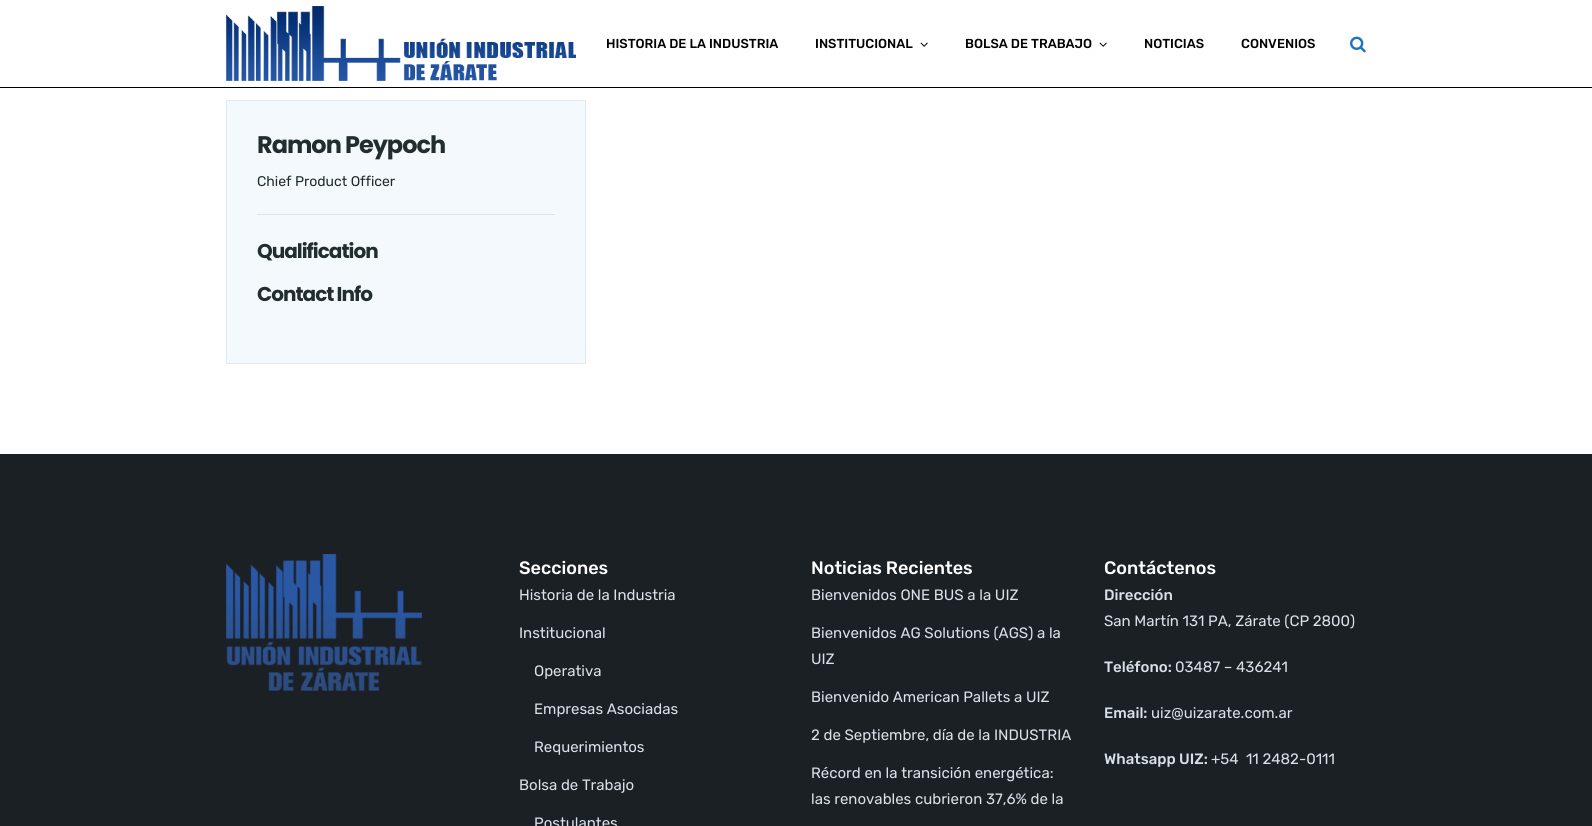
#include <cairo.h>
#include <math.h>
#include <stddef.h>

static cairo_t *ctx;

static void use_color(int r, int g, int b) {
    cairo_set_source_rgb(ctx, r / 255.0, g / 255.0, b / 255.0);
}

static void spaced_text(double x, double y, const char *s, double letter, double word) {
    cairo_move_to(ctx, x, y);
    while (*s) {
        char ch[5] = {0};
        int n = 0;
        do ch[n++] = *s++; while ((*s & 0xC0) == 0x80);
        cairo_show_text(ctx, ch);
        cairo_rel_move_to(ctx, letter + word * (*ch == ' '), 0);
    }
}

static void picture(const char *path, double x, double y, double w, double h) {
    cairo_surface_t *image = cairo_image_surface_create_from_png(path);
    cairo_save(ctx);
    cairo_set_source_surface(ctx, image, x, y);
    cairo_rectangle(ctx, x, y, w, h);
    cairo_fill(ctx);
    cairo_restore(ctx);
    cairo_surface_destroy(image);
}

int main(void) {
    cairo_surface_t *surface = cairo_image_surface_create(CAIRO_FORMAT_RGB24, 1592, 826);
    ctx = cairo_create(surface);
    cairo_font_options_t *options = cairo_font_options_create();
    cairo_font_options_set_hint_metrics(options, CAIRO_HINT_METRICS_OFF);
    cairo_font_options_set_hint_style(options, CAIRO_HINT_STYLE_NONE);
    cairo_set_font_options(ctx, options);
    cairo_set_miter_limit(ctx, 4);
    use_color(255, 255, 255);
    cairo_paint(ctx);
    use_color(0, 0, 0);
    cairo_rectangle(ctx, 0, 87, 1592, 1);
    cairo_fill(ctx);
    picture("img1.png", 226, 6, 350, 75);
    cairo_select_font_face(ctx, "Rubik Medium", CAIRO_FONT_SLANT_NORMAL, CAIRO_FONT_WEIGHT_NORMAL);
    cairo_set_font_size(ctx, 13);
    cairo_move_to(ctx, 606, 48);
    cairo_show_text(ctx, "HISTORIA DE LA INDUSTRIA");
    cairo_move_to(ctx, 815, 48);
    cairo_show_text(ctx, "INSTITUCIONAL");
    picture("img2.png", 920, 42, 8, 5);
    cairo_move_to(ctx, 965, 48);
    cairo_show_text(ctx, "BOLSA DE TRABAJO");
    picture("img2.png", 1099, 42, 8, 5);
    cairo_move_to(ctx, 1144, 48);
    cairo_show_text(ctx, "NOTICIAS");
    cairo_move_to(ctx, 1241, 48);
    cairo_show_text(ctx, "CONVENIOS");
    picture("img3.png", 1350, 36, 16, 17);
    use_color(244, 249, 253);
    cairo_rectangle(ctx, 226.5, 100.5, 359, 263);
    cairo_fill_preserve(ctx);
    use_color(223, 234, 242);
    cairo_set_line_width(ctx, 1);
    cairo_stroke(ctx);
    cairo_select_font_face(ctx, "Poppins", CAIRO_FONT_SLANT_NORMAL, CAIRO_FONT_WEIGHT_BOLD);
    cairo_set_font_size(ctx, 24);
    use_color(33, 45, 49);
    spaced_text(257, 153, "Ramon Peypoch", -1, 0);
    cairo_select_font_face(ctx, "Rubik", CAIRO_FONT_SLANT_NORMAL, CAIRO_FONT_WEIGHT_NORMAL);
    cairo_set_font_size(ctx, 14);
    cairo_move_to(ctx, 257, 186);
    cairo_show_text(ctx, "Chief Product Officer");
    use_color(226, 226, 226);
    cairo_rectangle(ctx, 257, 214, 298, 1);
    cairo_fill(ctx);
    cairo_select_font_face(ctx, "Poppins", CAIRO_FONT_SLANT_NORMAL, CAIRO_FONT_WEIGHT_BOLD);
    cairo_set_font_size(ctx, 20);
    use_color(33, 45, 49);
    spaced_text(257, 258, "Qualification", -1, 0);
    spaced_text(257, 301, "Contact Info", -1, 0);
    use_color(26, 32, 36);
    cairo_rectangle(ctx, 0, 454, 1592, 372);
    cairo_fill(ctx);
    picture("img4.png", 226, 554, 196, 137);
    cairo_select_font_face(ctx, "Rubik Medium", CAIRO_FONT_SLANT_NORMAL, CAIRO_FONT_WEIGHT_NORMAL);
    cairo_set_font_size(ctx, 18);
    use_color(255, 255, 255);
    cairo_move_to(ctx, 519, 574);
    cairo_show_text(ctx, "Secciones");
    cairo_select_font_face(ctx, "Rubik", CAIRO_FONT_SLANT_NORMAL, CAIRO_FONT_WEIGHT_NORMAL);
    cairo_set_font_size(ctx, 15);
    use_color(217, 224, 232);
    cairo_move_to(ctx, 519, 600);
    cairo_show_text(ctx, "Historia de la Industria");
    cairo_move_to(ctx, 519, 638);
    cairo_show_text(ctx, "Institucional");
    cairo_move_to(ctx, 534, 676);
    cairo_show_text(ctx, "Operativa");
    cairo_move_to(ctx, 534, 714);
    cairo_show_text(ctx, "Empresas Asociadas");
    cairo_move_to(ctx, 534, 752);
    cairo_show_text(ctx, "Requerimientos");
    cairo_move_to(ctx, 519, 790);
    cairo_show_text(ctx, "Bolsa de Trabajo");
    cairo_move_to(ctx, 534, 828);
    cairo_show_text(ctx, "Postulantes");
    cairo_select_font_face(ctx, "Rubik Medium", CAIRO_FONT_SLANT_NORMAL, CAIRO_FONT_WEIGHT_NORMAL);
    cairo_set_font_size(ctx, 18);
    use_color(255, 255, 255);
    cairo_move_to(ctx, 811, 574);
    cairo_show_text(ctx, "Noticias Recientes");
    cairo_select_font_face(ctx, "Rubik", CAIRO_FONT_SLANT_NORMAL, CAIRO_FONT_WEIGHT_NORMAL);
    cairo_set_font_size(ctx, 15);
    use_color(217, 224, 232);
    cairo_move_to(ctx, 811, 600);
    cairo_show_text(ctx, "Bienvenidos ONE BUS a la UIZ");
    cairo_move_to(ctx, 811, 638);
    cairo_show_text(ctx, "Bienvenidos AG Solutions (AGS) a la");
    cairo_move_to(ctx, 811, 664);
    cairo_show_text(ctx, "UIZ");
    cairo_move_to(ctx, 811, 702);
    cairo_show_text(ctx, "Bienvenido American Pallets a UIZ");
    cairo_move_to(ctx, 811, 740);
    cairo_show_text(ctx, "2 de Septiembre, día de la INDUSTRIA");
    cairo_move_to(ctx, 811, 778);
    cairo_show_text(ctx, "Récord en la transición energética:");
    cairo_move_to(ctx, 811, 804);
    cairo_show_text(ctx, "las renovables cubrieron 37,6% de la");
    cairo_select_font_face(ctx, "Rubik Medium", CAIRO_FONT_SLANT_NORMAL, CAIRO_FONT_WEIGHT_NORMAL);
    cairo_set_font_size(ctx, 18);
    use_color(255, 255, 255);
    cairo_move_to(ctx, 1104, 574);
    cairo_show_text(ctx, "Contáctenos");
    cairo_set_font_size(ctx, 15);
    use_color(217, 224, 232);
    cairo_move_to(ctx, 1104, 600);
    cairo_show_text(ctx, "Dirección");
    cairo_select_font_face(ctx, "Rubik", CAIRO_FONT_SLANT_NORMAL, CAIRO_FONT_WEIGHT_NORMAL);
    cairo_move_to(ctx, 1104, 626);
    cairo_show_text(ctx, "San Martín 131 PA, Zárate (CP 2800)");
    cairo_select_font_face(ctx, "Rubik Medium", CAIRO_FONT_SLANT_NORMAL, CAIRO_FONT_WEIGHT_NORMAL);
    cairo_move_to(ctx, 1104, 672);
    cairo_show_text(ctx, "Teléfono:");
    cairo_select_font_face(ctx, "Rubik", CAIRO_FONT_SLANT_NORMAL, CAIRO_FONT_WEIGHT_NORMAL);
    cairo_move_to(ctx, 1175, 672);
    cairo_show_text(ctx, "03487 – 436241");
    cairo_select_font_face(ctx, "Rubik Medium", CAIRO_FONT_SLANT_NORMAL, CAIRO_FONT_WEIGHT_NORMAL);
    cairo_move_to(ctx, 1104, 718);
    cairo_show_text(ctx, "Email:");
    cairo_select_font_face(ctx, "Rubik", CAIRO_FONT_SLANT_NORMAL, CAIRO_FONT_WEIGHT_NORMAL);
    cairo_move_to(ctx, 1151, 718);
    cairo_show_text(ctx, "uiz@uizarate.com.ar");
    cairo_select_font_face(ctx, "Rubik Medium", CAIRO_FONT_SLANT_NORMAL, CAIRO_FONT_WEIGHT_NORMAL);
    cairo_move_to(ctx, 1104, 764);
    cairo_show_text(ctx, "Whatsapp UIZ:");
    cairo_select_font_face(ctx, "Rubik", CAIRO_FONT_SLANT_NORMAL, CAIRO_FONT_WEIGHT_NORMAL);
    cairo_move_to(ctx, 1211, 764);
    cairo_show_text(ctx, "+54  11 2482-0111");
    cairo_surface_write_to_png(surface, "result.png");
    cairo_font_options_destroy(options);
    cairo_destroy(ctx);
    cairo_surface_destroy(surface);
    return 0;
}
